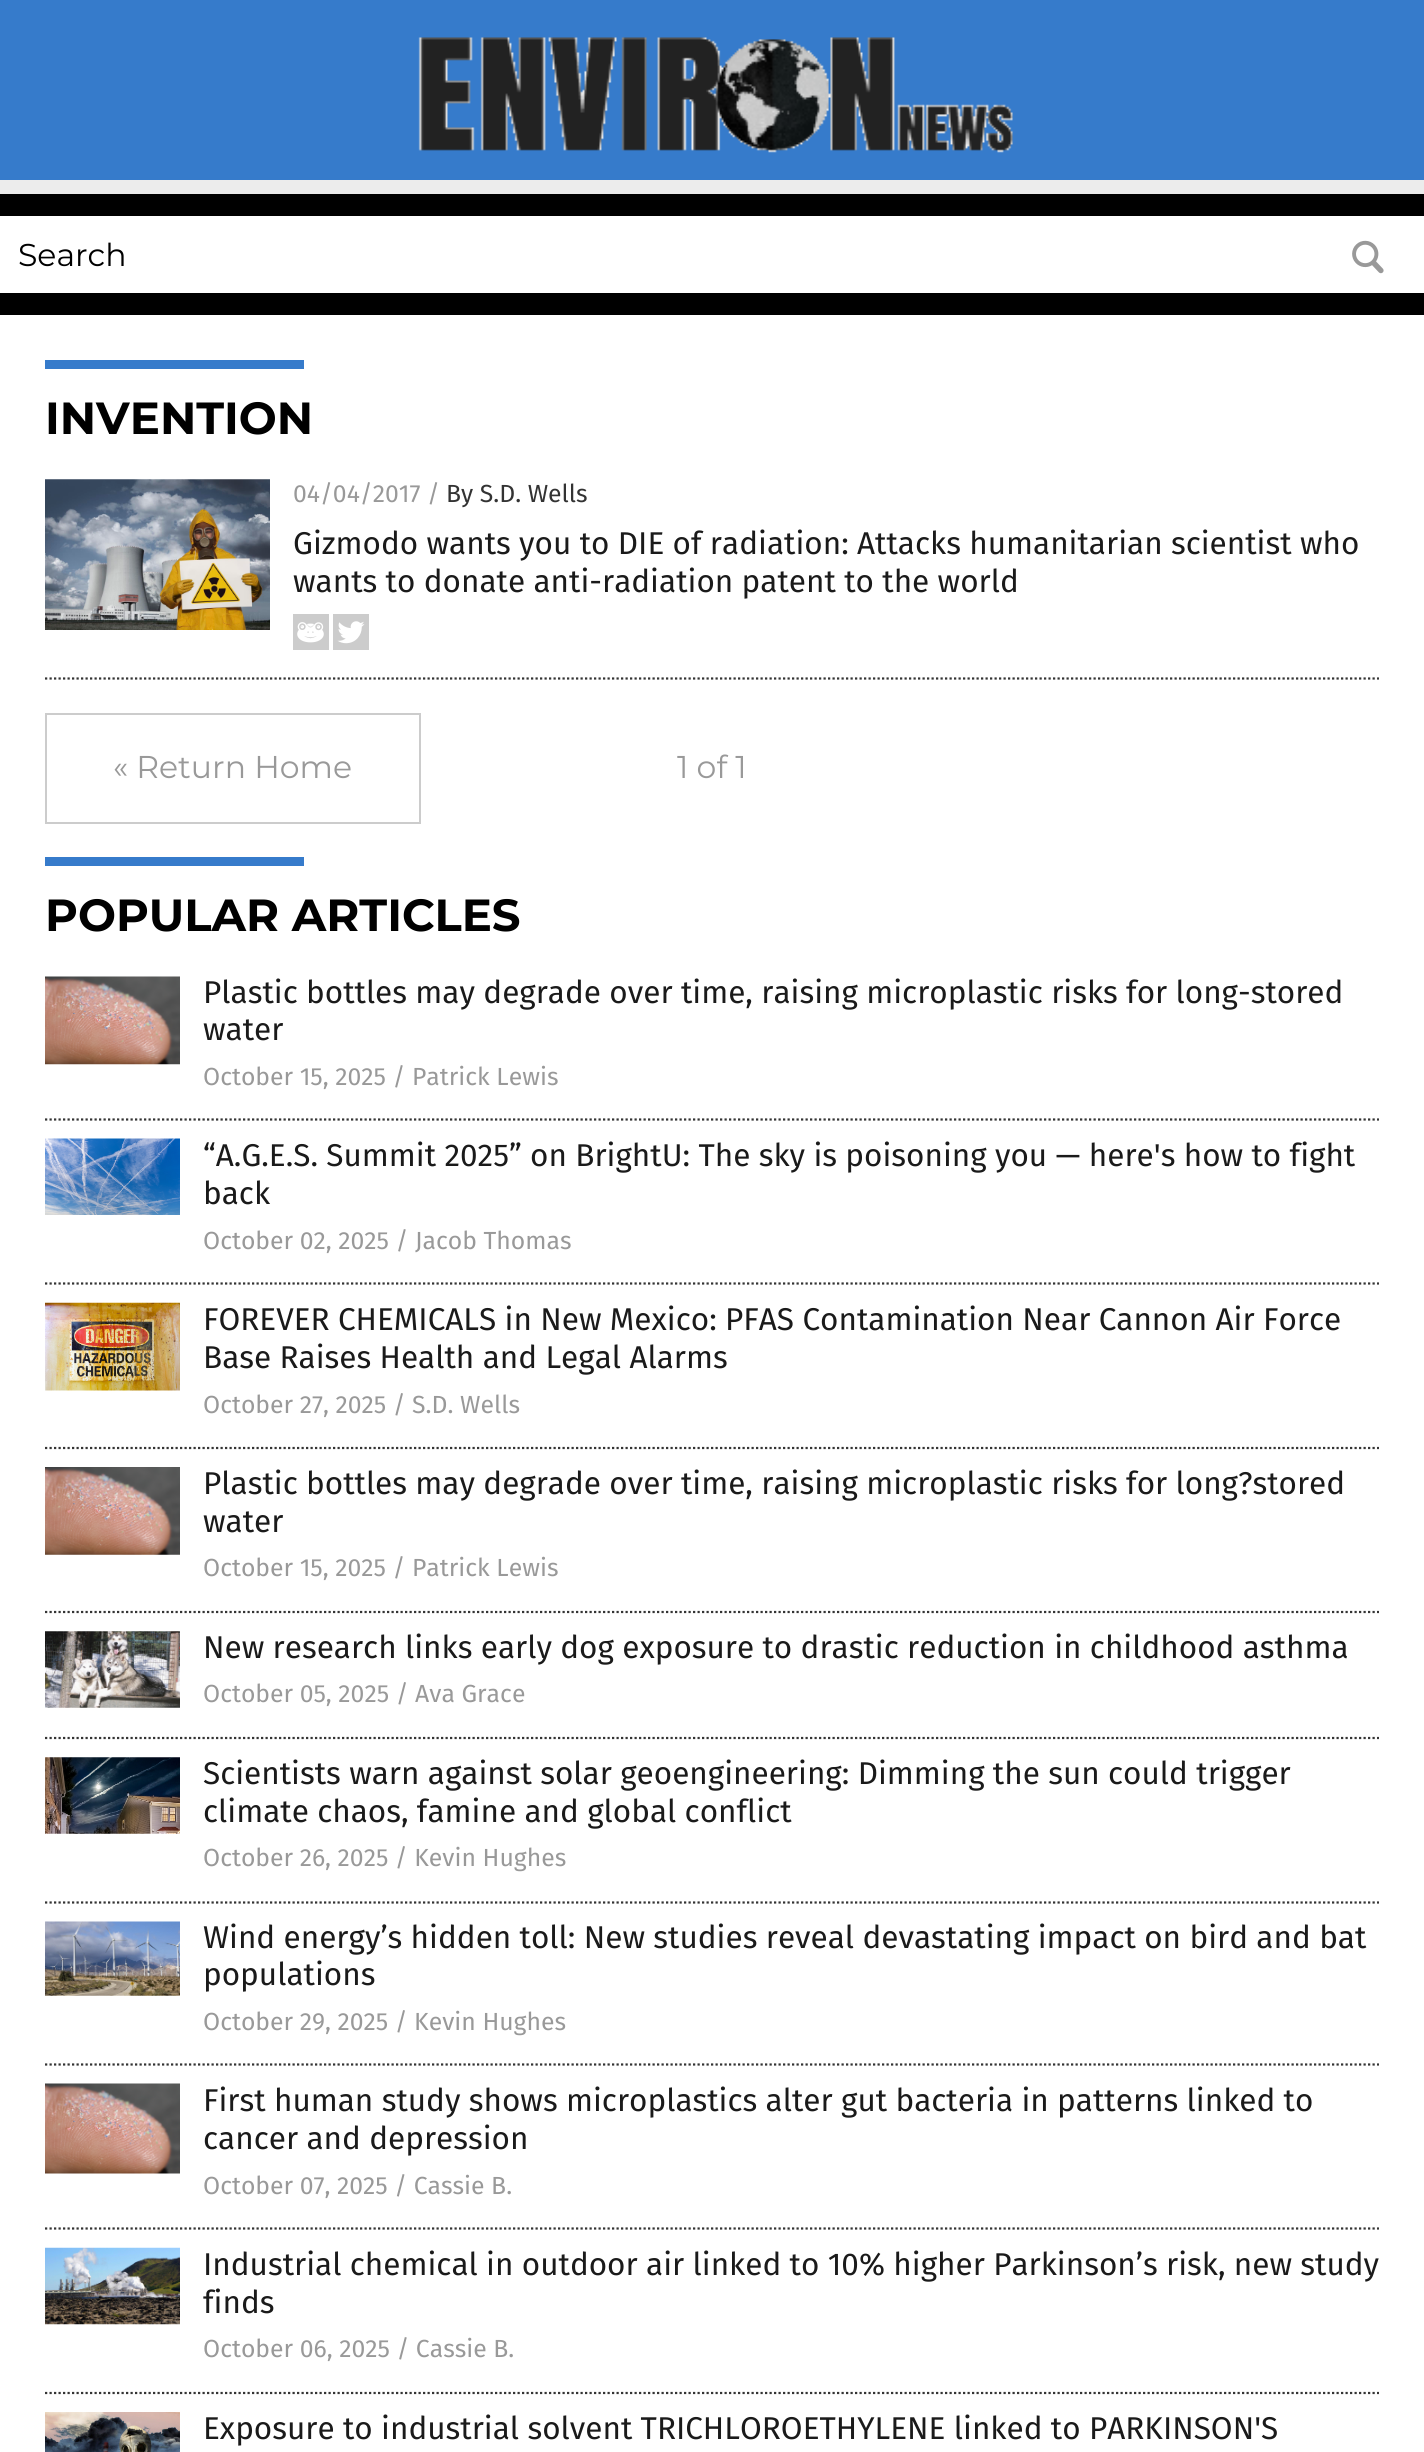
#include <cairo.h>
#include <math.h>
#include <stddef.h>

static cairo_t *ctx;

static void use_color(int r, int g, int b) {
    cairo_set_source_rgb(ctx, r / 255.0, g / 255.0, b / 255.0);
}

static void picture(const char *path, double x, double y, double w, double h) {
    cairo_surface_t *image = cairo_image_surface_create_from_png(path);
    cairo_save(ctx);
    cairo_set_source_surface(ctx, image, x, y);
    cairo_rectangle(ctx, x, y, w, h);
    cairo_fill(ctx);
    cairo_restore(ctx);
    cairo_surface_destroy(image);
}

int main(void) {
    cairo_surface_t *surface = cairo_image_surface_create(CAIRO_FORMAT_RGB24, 1424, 2452);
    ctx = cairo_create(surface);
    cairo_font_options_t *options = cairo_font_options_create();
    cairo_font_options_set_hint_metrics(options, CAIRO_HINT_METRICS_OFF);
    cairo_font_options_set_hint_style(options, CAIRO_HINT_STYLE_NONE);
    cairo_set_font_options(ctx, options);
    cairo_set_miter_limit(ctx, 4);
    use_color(0, 0, 0);
    cairo_paint(ctx);
    use_color(54, 123, 203);
    cairo_rectangle(ctx, 0, 0, 1424, 180);
    cairo_fill(ctx);
    picture("img1.png", 418, 37, 595, 116);
    use_color(236, 236, 236);
    cairo_rectangle(ctx, 0, 180, 1424, 14);
    cairo_fill(ctx);
    use_color(255, 255, 255);
    cairo_rectangle(ctx, 0, 216, 1424, 77);
    cairo_fill(ctx);
    cairo_select_font_face(ctx, "Montserrat", CAIRO_FONT_SLANT_NORMAL, CAIRO_FONT_WEIGHT_NORMAL);
    cairo_set_font_size(ctx, 31.5);
    use_color(0, 0, 0);
    cairo_move_to(ctx, 18, 266);
    cairo_show_text(ctx, "Search");
    picture("img2.png", 1352, 240, 32, 34);
    use_color(255, 255, 255);
    cairo_rectangle(ctx, 0, 315, 1424, 2137);
    cairo_fill(ctx);
    use_color(54, 123, 203);
    cairo_rectangle(ctx, 45, 360, 259, 9);
    cairo_fill(ctx);
    cairo_select_font_face(ctx, "Montserrat", CAIRO_FONT_SLANT_NORMAL, CAIRO_FONT_WEIGHT_BOLD);
    cairo_set_font_size(ctx, 45);
    use_color(0, 0, 0);
    cairo_move_to(ctx, 45, 434);
    cairo_show_text(ctx, "INVENTION");
    cairo_new_path(ctx);
    cairo_move_to(ctx, 45, 678.5);
    cairo_line_to(ctx, 1379, 678.5);
    use_color(52, 52, 52);
    cairo_set_line_width(ctx, 2.2);
    cairo_set_dash(ctx, (double[]){2.25, 2.25}, 2, 0);
    cairo_stroke(ctx);
    picture("img3.png", 45, 479, 225, 151);
    cairo_select_font_face(ctx, "Fira Sans", CAIRO_FONT_SLANT_NORMAL, CAIRO_FONT_WEIGHT_NORMAL);
    cairo_set_font_size(ctx, 24.75);
    use_color(153, 153, 153);
    cairo_move_to(ctx, 293, 502);
    cairo_show_text(ctx, "04/04/2017 /");
    use_color(51, 51, 51);
    cairo_move_to(ctx, 446, 502);
    cairo_show_text(ctx, "By S.D. Wells");
    cairo_set_font_size(ctx, 31.5);
    use_color(26, 26, 26);
    cairo_move_to(ctx, 293, 554);
    cairo_show_text(ctx, "Gizmodo wants you to DIE of radiation: Attacks humanitarian scientist who");
    cairo_move_to(ctx, 293, 592);
    cairo_show_text(ctx, "wants to donate anti-radiation patent to the world");
    picture("img4.png", 293, 614, 36, 36);
    picture("img5.png", 333, 614, 36, 36);
    cairo_rectangle(ctx, 46, 714, 374, 109);
    use_color(204, 204, 204);
    cairo_set_line_width(ctx, 2);
    cairo_set_dash(ctx, NULL, 0, 0);
    cairo_stroke(ctx);
    cairo_select_font_face(ctx, "Montserrat", CAIRO_FONT_SLANT_NORMAL, CAIRO_FONT_WEIGHT_NORMAL);
    use_color(153, 153, 153);
    cairo_move_to(ctx, 113, 778);
    cairo_show_text(ctx, "« Return Home");
    cairo_move_to(ctx, 677, 778);
    cairo_show_text(ctx, "1 of 1");
    use_color(54, 123, 203);
    cairo_rectangle(ctx, 45, 857, 259, 9);
    cairo_fill(ctx);
    cairo_select_font_face(ctx, "Montserrat", CAIRO_FONT_SLANT_NORMAL, CAIRO_FONT_WEIGHT_BOLD);
    cairo_set_font_size(ctx, 45);
    use_color(0, 0, 0);
    cairo_move_to(ctx, 45, 931);
    cairo_show_text(ctx, "POPULAR ARTICLES");
    cairo_new_path(ctx);
    cairo_move_to(ctx, 45, 1119.5);
    cairo_line_to(ctx, 1379, 1119.5);
    use_color(52, 52, 52);
    cairo_set_line_width(ctx, 2.2);
    cairo_set_dash(ctx, (double[]){2.25, 2.25}, 2, 0);
    cairo_stroke(ctx);
    picture("img6.png", 45, 976, 135, 89);
    cairo_select_font_face(ctx, "Fira Sans", CAIRO_FONT_SLANT_NORMAL, CAIRO_FONT_WEIGHT_NORMAL);
    cairo_set_font_size(ctx, 31.5);
    use_color(26, 26, 26);
    cairo_move_to(ctx, 203, 1003);
    cairo_show_text(ctx, "Plastic bottles may degrade over time, raising microplastic risks for long-stored");
    cairo_move_to(ctx, 203, 1040);
    cairo_show_text(ctx, "water");
    cairo_set_font_size(ctx, 24.75);
    use_color(153, 153, 153);
    cairo_move_to(ctx, 203, 1085);
    cairo_show_text(ctx, "October 15, 2025 / Patrick Lewis");
    cairo_new_path(ctx);
    cairo_move_to(ctx, 45, 1283.5);
    cairo_line_to(ctx, 1379, 1283.5);
    use_color(52, 52, 52);
    cairo_stroke(ctx);
    picture("img7.png", 45, 1138, 135, 77);
    cairo_set_font_size(ctx, 31.5);
    use_color(26, 26, 26);
    cairo_move_to(ctx, 203, 1166);
    cairo_show_text(ctx, "“A.G.E.S. Summit 2025” on BrightU: The sky is poisoning you — here's how to fight");
    cairo_move_to(ctx, 203, 1204);
    cairo_show_text(ctx, "back");
    cairo_set_font_size(ctx, 24.75);
    use_color(153, 153, 153);
    cairo_move_to(ctx, 203, 1249);
    cairo_show_text(ctx, "October 02, 2025 / Jacob Thomas");
    cairo_new_path(ctx);
    cairo_move_to(ctx, 45, 1448);
    cairo_line_to(ctx, 1379, 1448);
    use_color(52, 52, 52);
    cairo_stroke(ctx);
    picture("img8.png", 45, 1302, 135, 89);
    cairo_set_font_size(ctx, 31.5);
    use_color(26, 26, 26);
    cairo_move_to(ctx, 203, 1330);
    cairo_show_text(ctx, "FOREVER CHEMICALS in New Mexico: PFAS Contamination Near Cannon Air Force");
    cairo_move_to(ctx, 203, 1368);
    cairo_show_text(ctx, "Base Raises Health and Legal Alarms");
    cairo_set_font_size(ctx, 24.75);
    use_color(153, 153, 153);
    cairo_move_to(ctx, 203, 1413);
    cairo_show_text(ctx, "October 27, 2025 / S.D. Wells");
    cairo_new_path(ctx);
    cairo_move_to(ctx, 45, 1612);
    cairo_line_to(ctx, 1379, 1612);
    use_color(52, 52, 52);
    cairo_stroke(ctx);
    picture("img9.png", 45, 1467, 135, 88);
    cairo_set_font_size(ctx, 31.5);
    use_color(26, 26, 26);
    cairo_move_to(ctx, 203, 1494);
    cairo_show_text(ctx, "Plastic bottles may degrade over time, raising microplastic risks for long?stored");
    cairo_move_to(ctx, 203, 1532);
    cairo_show_text(ctx, "water");
    cairo_set_font_size(ctx, 24.75);
    use_color(153, 153, 153);
    cairo_move_to(ctx, 203, 1576);
    cairo_show_text(ctx, "October 15, 2025 / Patrick Lewis");
    cairo_new_path(ctx);
    cairo_move_to(ctx, 45, 1738);
    cairo_line_to(ctx, 1379, 1738);
    use_color(52, 52, 52);
    cairo_stroke(ctx);
    picture("img10.png", 45, 1631, 135, 77);
    cairo_set_font_size(ctx, 31.5);
    use_color(26, 26, 26);
    cairo_move_to(ctx, 203, 1658);
    cairo_show_text(ctx, "New research links early dog exposure to drastic reduction in childhood asthma");
    cairo_set_font_size(ctx, 24.75);
    use_color(153, 153, 153);
    cairo_move_to(ctx, 203, 1702);
    cairo_show_text(ctx, "October 05, 2025 / Ava Grace");
    cairo_new_path(ctx);
    cairo_move_to(ctx, 45, 1902.5);
    cairo_line_to(ctx, 1379, 1902.5);
    use_color(52, 52, 52);
    cairo_stroke(ctx);
    picture("img11.png", 45, 1757, 135, 77);
    cairo_set_font_size(ctx, 31.5);
    use_color(26, 26, 26);
    cairo_move_to(ctx, 203, 1784);
    cairo_show_text(ctx, "Scientists warn against solar geoengineering: Dimming the sun could trigger");
    cairo_move_to(ctx, 203, 1822);
    cairo_show_text(ctx, "climate chaos, famine and global conflict");
    cairo_set_font_size(ctx, 24.75);
    use_color(153, 153, 153);
    cairo_move_to(ctx, 203, 1866);
    cairo_show_text(ctx, "October 26, 2025 / Kevin Hughes");
    cairo_new_path(ctx);
    cairo_move_to(ctx, 45, 2064.5);
    cairo_line_to(ctx, 1379, 2064.5);
    use_color(52, 52, 52);
    cairo_stroke(ctx);
    picture("img12.png", 45, 1921, 135, 75);
    cairo_set_font_size(ctx, 31.5);
    use_color(26, 26, 26);
    cairo_move_to(ctx, 203, 1948);
    cairo_show_text(ctx, "Wind energy’s hidden toll: New studies reveal devastating impact on bird and bat");
    cairo_move_to(ctx, 203, 1985);
    cairo_show_text(ctx, "populations");
    cairo_set_font_size(ctx, 24.75);
    use_color(153, 153, 153);
    cairo_move_to(ctx, 203, 2030);
    cairo_show_text(ctx, "October 29, 2025 / Kevin Hughes");
    cairo_new_path(ctx);
    cairo_move_to(ctx, 45, 2228.5);
    cairo_line_to(ctx, 1379, 2228.5);
    use_color(52, 52, 52);
    cairo_stroke(ctx);
    picture("img13.png", 45, 2083, 135, 91);
    cairo_set_font_size(ctx, 31.5);
    use_color(26, 26, 26);
    cairo_move_to(ctx, 203, 2111);
    cairo_show_text(ctx, "First human study shows microplastics alter gut bacteria in patterns linked to");
    cairo_move_to(ctx, 203, 2149);
    cairo_show_text(ctx, "cancer and depression");
    cairo_set_font_size(ctx, 24.75);
    use_color(153, 153, 153);
    cairo_move_to(ctx, 203, 2194);
    cairo_show_text(ctx, "October 07, 2025 / Cassie B.");
    cairo_new_path(ctx);
    cairo_move_to(ctx, 45, 2393);
    cairo_line_to(ctx, 1379, 2393);
    use_color(52, 52, 52);
    cairo_stroke(ctx);
    picture("img14.png", 45, 2247, 135, 78);
    cairo_set_font_size(ctx, 31.5);
    use_color(26, 26, 26);
    cairo_move_to(ctx, 203, 2275);
    cairo_show_text(ctx, "Industrial chemical in outdoor air linked to 10% higher Parkinson’s risk, new study");
    cairo_move_to(ctx, 203, 2313);
    cairo_show_text(ctx, "finds");
    cairo_set_font_size(ctx, 24.75);
    use_color(153, 153, 153);
    cairo_move_to(ctx, 203, 2357);
    cairo_show_text(ctx, "October 06, 2025 / Cassie B.");
    picture("img15.png", 45, 2412, 135, 40);
    cairo_set_font_size(ctx, 31.5);
    use_color(26, 26, 26);
    cairo_move_to(ctx, 203, 2439);
    cairo_show_text(ctx, "Exposure to industrial solvent TRICHLOROETHYLENE linked to PARKINSON'S");
    cairo_surface_write_to_png(surface, "result.png");
    cairo_font_options_destroy(options);
    cairo_destroy(ctx);
    cairo_surface_destroy(surface);
    return 0;
}
